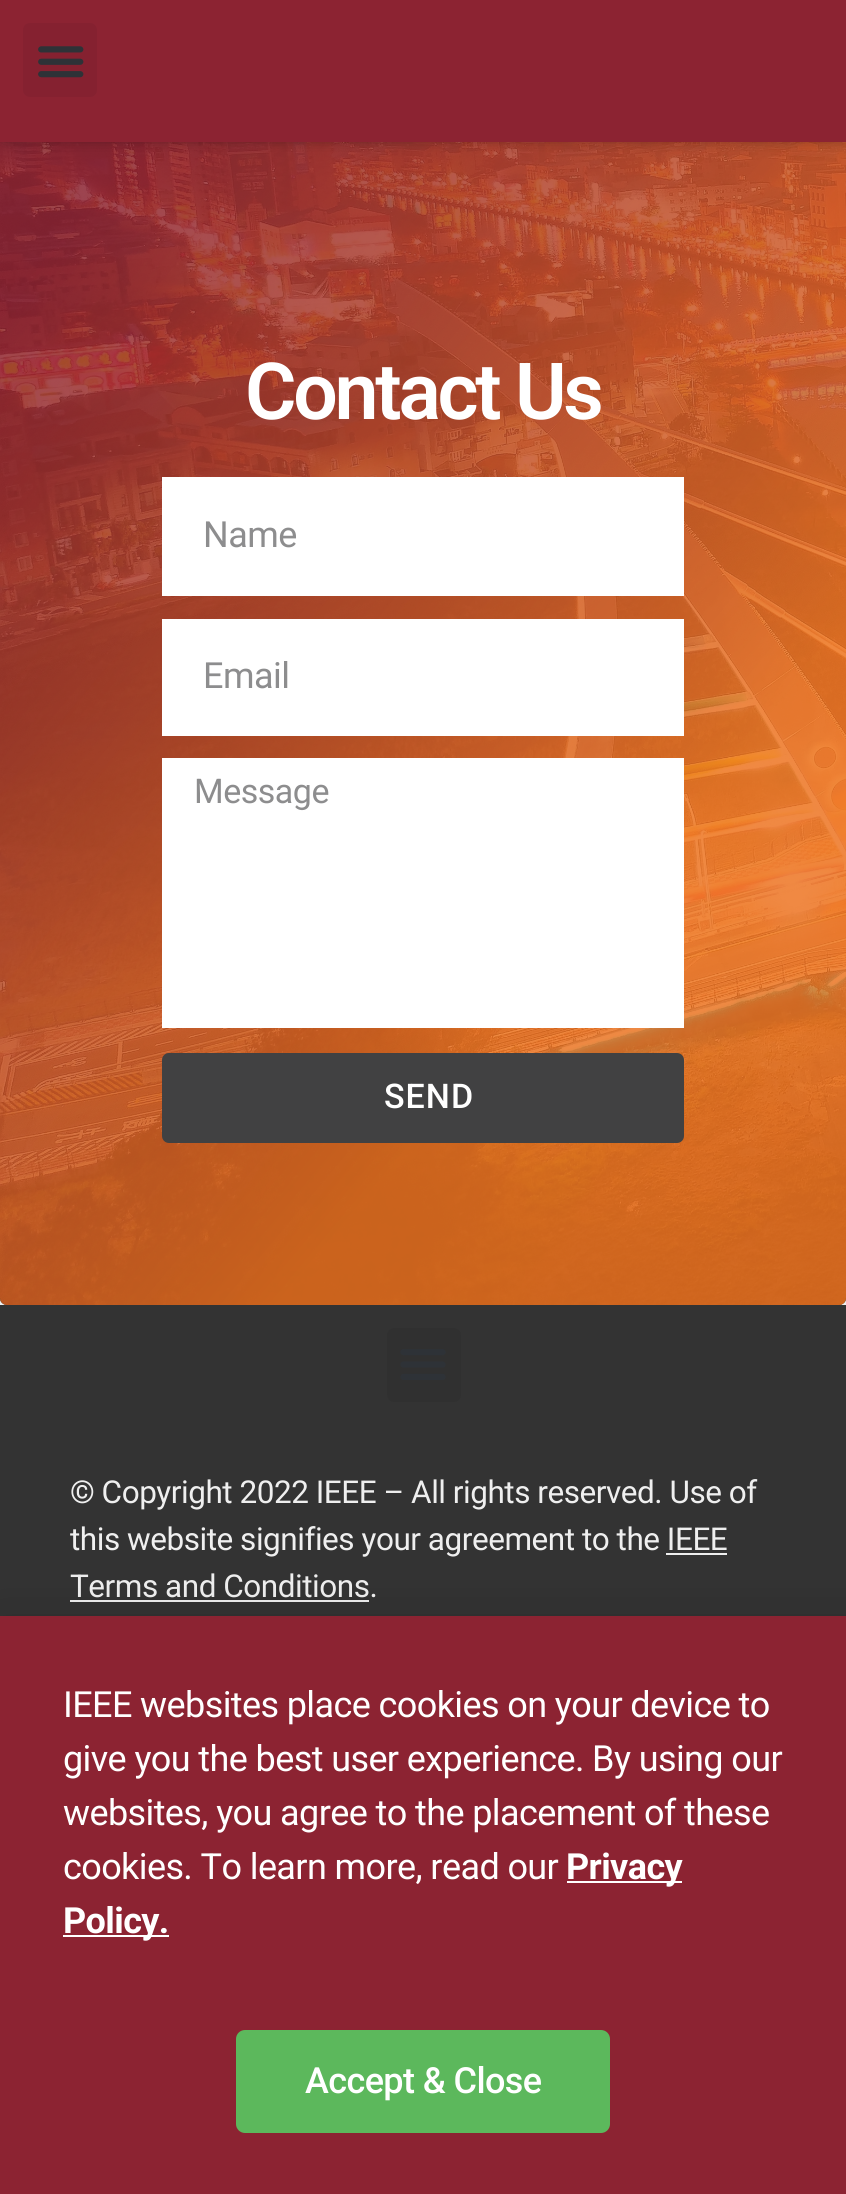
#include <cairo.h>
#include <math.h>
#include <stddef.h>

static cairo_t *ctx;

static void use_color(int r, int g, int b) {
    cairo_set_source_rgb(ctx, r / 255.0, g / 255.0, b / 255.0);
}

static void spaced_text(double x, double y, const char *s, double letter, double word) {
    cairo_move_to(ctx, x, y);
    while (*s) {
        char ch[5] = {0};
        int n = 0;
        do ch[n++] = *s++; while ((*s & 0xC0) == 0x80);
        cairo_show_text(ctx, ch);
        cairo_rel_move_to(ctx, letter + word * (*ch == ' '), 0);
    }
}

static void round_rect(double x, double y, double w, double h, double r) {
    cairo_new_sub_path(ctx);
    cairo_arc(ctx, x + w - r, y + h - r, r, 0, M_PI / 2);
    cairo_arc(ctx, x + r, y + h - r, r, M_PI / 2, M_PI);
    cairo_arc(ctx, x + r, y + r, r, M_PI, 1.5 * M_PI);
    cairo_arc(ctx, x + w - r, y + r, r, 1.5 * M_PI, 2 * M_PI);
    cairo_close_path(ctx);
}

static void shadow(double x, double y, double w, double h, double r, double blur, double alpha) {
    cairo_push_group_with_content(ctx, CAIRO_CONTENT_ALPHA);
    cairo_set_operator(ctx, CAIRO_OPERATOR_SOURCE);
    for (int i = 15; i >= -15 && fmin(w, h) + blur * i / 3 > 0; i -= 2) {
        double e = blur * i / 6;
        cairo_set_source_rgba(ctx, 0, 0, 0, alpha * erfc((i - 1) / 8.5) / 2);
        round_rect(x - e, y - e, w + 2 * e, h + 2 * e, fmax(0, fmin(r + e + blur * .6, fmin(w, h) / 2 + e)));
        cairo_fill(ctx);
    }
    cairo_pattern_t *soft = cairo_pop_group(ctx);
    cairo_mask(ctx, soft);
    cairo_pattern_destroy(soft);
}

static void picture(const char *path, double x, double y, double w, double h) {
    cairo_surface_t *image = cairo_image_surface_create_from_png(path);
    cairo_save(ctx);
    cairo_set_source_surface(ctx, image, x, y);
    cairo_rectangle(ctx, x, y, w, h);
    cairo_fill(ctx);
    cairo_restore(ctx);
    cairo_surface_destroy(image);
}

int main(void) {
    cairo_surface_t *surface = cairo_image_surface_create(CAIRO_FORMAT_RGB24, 846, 2194);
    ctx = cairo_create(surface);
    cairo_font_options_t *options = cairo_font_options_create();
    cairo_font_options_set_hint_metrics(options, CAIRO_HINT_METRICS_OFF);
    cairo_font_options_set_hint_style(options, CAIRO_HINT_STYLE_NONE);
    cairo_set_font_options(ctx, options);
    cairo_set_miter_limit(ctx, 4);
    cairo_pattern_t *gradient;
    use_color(240, 240, 240);
    cairo_paint(ctx);
    picture("img2.png", 0, 142, 846, 1163);
    gradient = cairo_pattern_create_linear(-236, -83, 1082, 1023);
    cairo_pattern_add_color_stop_rgba(gradient, 0.25, 0.549, 0.137, 0.196, 0.85);
    cairo_pattern_add_color_stop_rgba(gradient, 0.75, 0.933, 0.459, 0.133, 0.85);
    cairo_set_source(ctx, gradient);
    cairo_pattern_destroy(gradient);
    round_rect(0, -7, 846, 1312, 7);
    cairo_fill(ctx);
    use_color(0, 0, 0);
    shadow(5, 5, 837, 132, 0, 8, 0.5);
    use_color(140, 35, 50);
    cairo_rectangle(ctx, 0, 0, 846, 142);
    cairo_fill(ctx);
    use_color(133, 33, 48);
    round_rect(23, 23, 74, 74, 7);
    cairo_fill(ctx);
    picture("img1.png", 38, 46, 46, 32);
    cairo_select_font_face(ctx, "Roboto SemiBold", CAIRO_FONT_SLANT_NORMAL, CAIRO_FONT_WEIGHT_NORMAL);
    cairo_set_font_size(ctx, 78.75);
    use_color(255, 255, 255);
    spaced_text(245, 419, "Contact Us", -3.25, 0);
    cairo_rectangle(ctx, 162, 477, 522, 119);
    cairo_fill(ctx);
    cairo_select_font_face(ctx, "Roboto", CAIRO_FONT_SLANT_NORMAL, CAIRO_FONT_WEIGHT_NORMAL);
    cairo_set_font_size(ctx, 36);
    use_color(141, 141, 142);
    spaced_text(203, 547, "Name", -0.5, 0);
    use_color(255, 255, 255);
    cairo_rectangle(ctx, 162, 619, 522, 117);
    cairo_fill(ctx);
    use_color(141, 141, 142);
    spaced_text(203, 688, "Email", -0.5, 0);
    use_color(255, 255, 255);
    cairo_rectangle(ctx, 162, 758, 522, 270);
    cairo_fill(ctx);
    cairo_set_font_size(ctx, 34);
    use_color(141, 141, 142);
    spaced_text(194, 803, "Message", -0.5, 0);
    use_color(65, 65, 66);
    round_rect(162, 1053, 522, 90, 7);
    cairo_fill(ctx);
    cairo_select_font_face(ctx, "Roboto Medium", CAIRO_FONT_SLANT_NORMAL, CAIRO_FONT_WEIGHT_NORMAL);
    use_color(255, 255, 255);
    spaced_text(384, 1108, "SEND", 1, 0);
    use_color(51, 51, 51);
    cairo_rectangle(ctx, 0, 1305, 846, 311);
    cairo_fill(ctx);
    use_color(48, 48, 48);
    round_rect(387, 1328, 74, 74, 7);
    cairo_fill(ctx);
    picture("img3.png", 400, 1349, 46, 31);
    cairo_select_font_face(ctx, "Roboto", CAIRO_FONT_SLANT_NORMAL, CAIRO_FONT_WEIGHT_NORMAL);
    cairo_set_font_size(ctx, 31.5);
    use_color(239, 239, 239);
    spaced_text(70, 1503, "© Copyright 2022 IEEE – All rights reserved. Use of", -0.47, 0);
    spaced_text(70, 1550, "this website signifies your agreement to the IEEE", -0.47, 0);
    spaced_text(70, 1597, "Terms and Conditions.", -0.47, 0);
    cairo_rectangle(ctx, 666, 1553, 61, 2);
    cairo_fill(ctx);
    cairo_rectangle(ctx, 70, 1600, 299, 2);
    cairo_fill(ctx);
    use_color(0, 0, 0);
    shadow(-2, 1627, 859, 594, 0, 26, 0.2);
    use_color(140, 35, 50);
    cairo_rectangle(ctx, 0, 1616, 846, 578);
    cairo_fill(ctx);
    cairo_set_font_size(ctx, 36);
    use_color(255, 255, 255);
    spaced_text(63, 1717, "IEEE websites place cookies on your device to", -0.6, 0);
    spaced_text(63, 1771, "give you the best user experience. By using our", -0.6, 0);
    spaced_text(63, 1825, "websites, you agree to the placement of these", -0.6, 0);
    spaced_text(63, 1879, "cookies. To learn more, read our", -0.6, 0);
    cairo_rectangle(ctx, 567, 1881, 115, 2);
    cairo_fill(ctx);
    cairo_select_font_face(ctx, "Roboto", CAIRO_FONT_SLANT_NORMAL, CAIRO_FONT_WEIGHT_BOLD);
    spaced_text(566, 1879, "Privacy", -0.6, 0);
    cairo_rectangle(ctx, 63, 1935, 106, 2);
    cairo_fill(ctx);
    spaced_text(63, 1933, "Policy.", -0.6, 0);
    use_color(92, 184, 92);
    round_rect(236, 2030, 374, 103, 9);
    cairo_fill(ctx);
    cairo_select_font_face(ctx, "Roboto Medium", CAIRO_FONT_SLANT_NORMAL, CAIRO_FONT_WEIGHT_NORMAL);
    use_color(255, 255, 255);
    spaced_text(305, 2093, "Accept & Close", -0.6, 0);
    cairo_surface_write_to_png(surface, "result.png");
    cairo_font_options_destroy(options);
    cairo_destroy(ctx);
    cairo_surface_destroy(surface);
    return 0;
}
